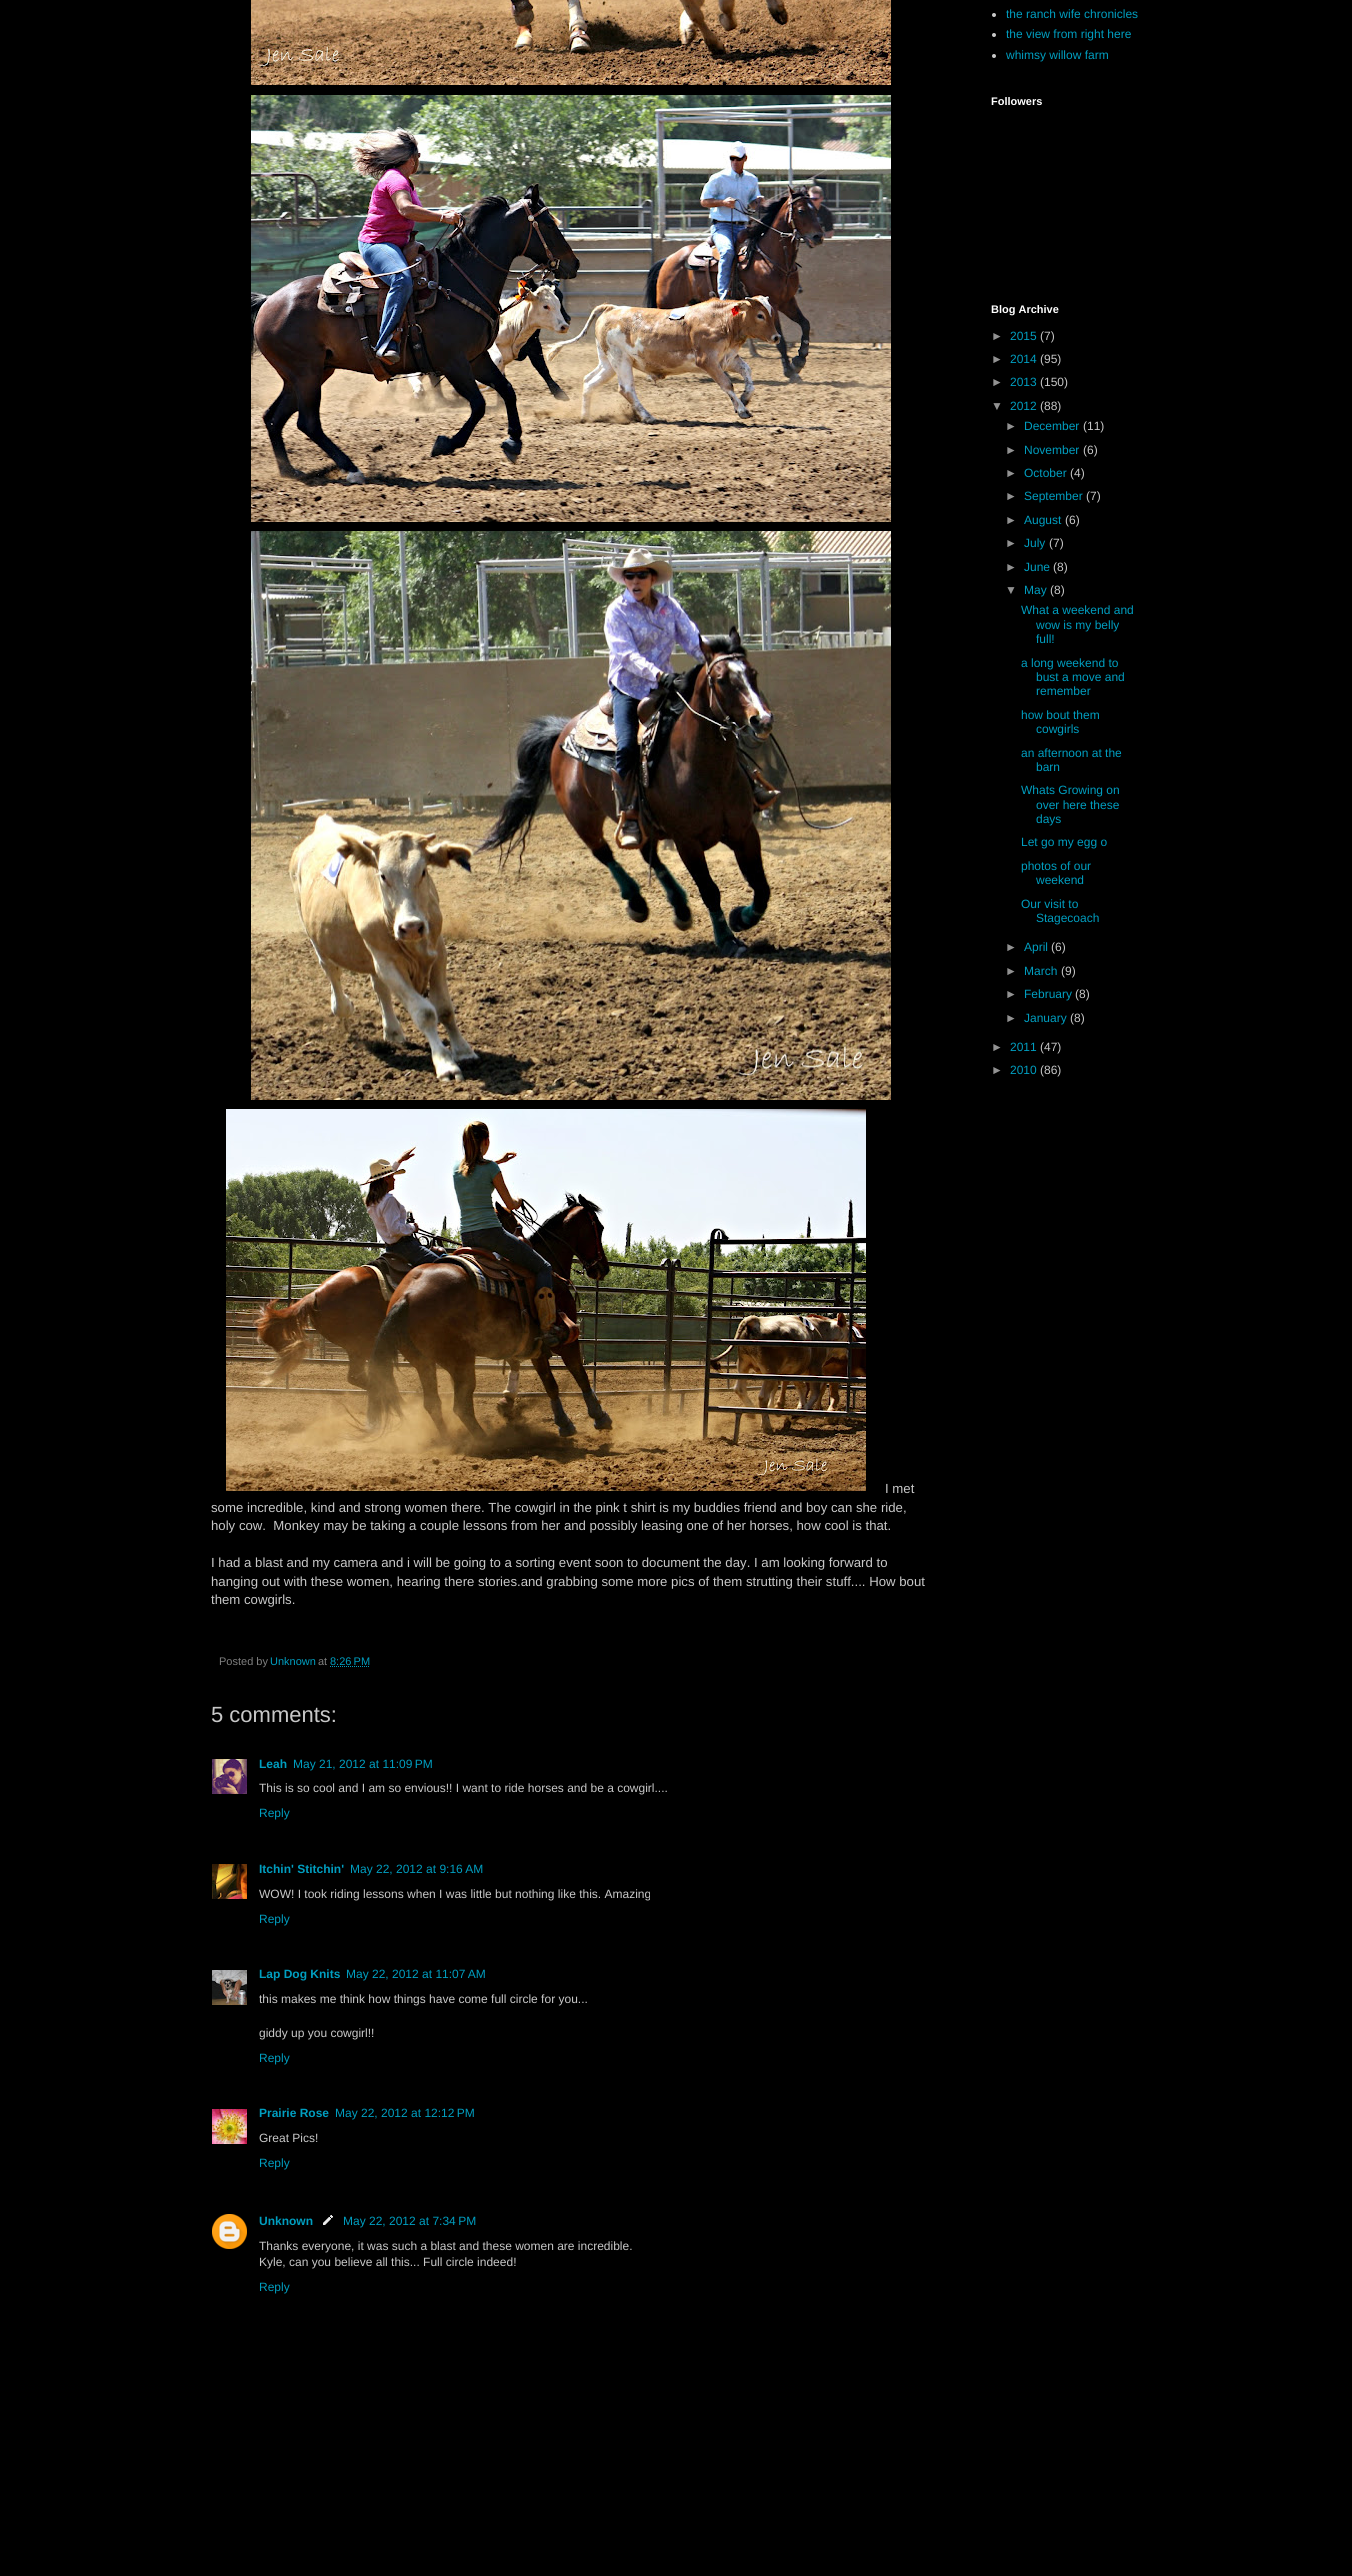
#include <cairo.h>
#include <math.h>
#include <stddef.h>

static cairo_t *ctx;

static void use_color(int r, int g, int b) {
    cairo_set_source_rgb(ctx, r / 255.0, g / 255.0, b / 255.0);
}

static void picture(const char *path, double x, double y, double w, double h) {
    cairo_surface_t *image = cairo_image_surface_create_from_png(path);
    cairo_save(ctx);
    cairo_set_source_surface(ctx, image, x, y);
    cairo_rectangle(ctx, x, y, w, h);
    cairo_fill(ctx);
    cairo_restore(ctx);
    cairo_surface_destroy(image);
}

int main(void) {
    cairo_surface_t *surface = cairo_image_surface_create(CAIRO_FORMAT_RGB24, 1352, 2576);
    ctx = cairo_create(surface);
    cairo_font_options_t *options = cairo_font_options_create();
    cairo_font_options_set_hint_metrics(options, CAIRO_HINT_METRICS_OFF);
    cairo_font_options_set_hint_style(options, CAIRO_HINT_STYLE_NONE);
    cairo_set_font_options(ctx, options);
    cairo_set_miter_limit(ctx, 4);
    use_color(0, 0, 0);
    cairo_paint(ctx);
    use_color(200, 200, 200);
    cairo_arc(ctx, 994, 15, 2, 0, 2 * M_PI);
    cairo_fill(ctx);
    cairo_select_font_face(ctx, "Liberation Sans", CAIRO_FONT_SLANT_NORMAL, CAIRO_FONT_WEIGHT_NORMAL);
    cairo_set_font_size(ctx, 12);
    use_color(0, 158, 192);
    cairo_move_to(ctx, 1006, 18);
    cairo_show_text(ctx, "the ranch wife chronicles");
    use_color(200, 200, 200);
    cairo_new_path(ctx);
    cairo_arc(ctx, 994, 35, 2, 0, 2 * M_PI);
    cairo_fill(ctx);
    use_color(0, 158, 192);
    cairo_move_to(ctx, 1006, 38);
    cairo_show_text(ctx, "the view from right here");
    use_color(200, 200, 200);
    cairo_new_path(ctx);
    cairo_arc(ctx, 994, 56, 2, 0, 2 * M_PI);
    cairo_fill(ctx);
    use_color(0, 158, 192);
    cairo_move_to(ctx, 1006, 59);
    cairo_show_text(ctx, "whimsy willow farm");
    cairo_select_font_face(ctx, "Liberation Sans", CAIRO_FONT_SLANT_NORMAL, CAIRO_FONT_WEIGHT_BOLD);
    cairo_set_font_size(ctx, 11);
    use_color(255, 255, 255);
    cairo_move_to(ctx, 991, 105);
    cairo_show_text(ctx, "Followers");
    cairo_move_to(ctx, 991, 313);
    cairo_show_text(ctx, "Blog Archive");
    cairo_select_font_face(ctx, "Liberation Sans", CAIRO_FONT_SLANT_NORMAL, CAIRO_FONT_WEIGHT_NORMAL);
    cairo_set_font_size(ctx, 12);
    use_color(146, 146, 146);
    cairo_move_to(ctx, 991, 340);
    cairo_show_text(ctx, "►");
    use_color(0, 158, 192);
    cairo_move_to(ctx, 1010, 340);
    cairo_show_text(ctx, "2015");
    use_color(200, 200, 200);
    cairo_move_to(ctx, 1040, 340);
    cairo_show_text(ctx, "(7)");
    use_color(146, 146, 146);
    cairo_move_to(ctx, 991, 363);
    cairo_show_text(ctx, "►");
    use_color(0, 158, 192);
    cairo_move_to(ctx, 1010, 363);
    cairo_show_text(ctx, "2014");
    use_color(200, 200, 200);
    cairo_move_to(ctx, 1040, 363);
    cairo_show_text(ctx, "(95)");
    use_color(146, 146, 146);
    cairo_move_to(ctx, 991, 386);
    cairo_show_text(ctx, "►");
    use_color(0, 158, 192);
    cairo_move_to(ctx, 1010, 386);
    cairo_show_text(ctx, "2013");
    use_color(200, 200, 200);
    cairo_move_to(ctx, 1040, 386);
    cairo_show_text(ctx, "(150)");
    use_color(146, 146, 146);
    cairo_move_to(ctx, 991, 410);
    cairo_show_text(ctx, "▼");
    use_color(0, 158, 192);
    cairo_move_to(ctx, 1010, 410);
    cairo_show_text(ctx, "2012");
    use_color(200, 200, 200);
    cairo_move_to(ctx, 1040, 410);
    cairo_show_text(ctx, "(88)");
    use_color(146, 146, 146);
    cairo_move_to(ctx, 1005, 430);
    cairo_show_text(ctx, "►");
    use_color(0, 158, 192);
    cairo_move_to(ctx, 1024, 430);
    cairo_show_text(ctx, "December");
    use_color(200, 200, 200);
    cairo_move_to(ctx, 1083, 430);
    cairo_show_text(ctx, "(11)");
    use_color(146, 146, 146);
    cairo_move_to(ctx, 1005, 454);
    cairo_show_text(ctx, "►");
    use_color(0, 158, 192);
    cairo_move_to(ctx, 1024, 454);
    cairo_show_text(ctx, "November");
    use_color(200, 200, 200);
    cairo_move_to(ctx, 1083, 454);
    cairo_show_text(ctx, "(6)");
    use_color(146, 146, 146);
    cairo_move_to(ctx, 1005, 477);
    cairo_show_text(ctx, "►");
    use_color(0, 158, 192);
    cairo_move_to(ctx, 1024, 477);
    cairo_show_text(ctx, "October");
    use_color(200, 200, 200);
    cairo_move_to(ctx, 1070, 477);
    cairo_show_text(ctx, "(4)");
    use_color(146, 146, 146);
    cairo_move_to(ctx, 1005, 500);
    cairo_show_text(ctx, "►");
    use_color(0, 158, 192);
    cairo_move_to(ctx, 1024, 500);
    cairo_show_text(ctx, "September");
    use_color(200, 200, 200);
    cairo_move_to(ctx, 1086, 500);
    cairo_show_text(ctx, "(7)");
    use_color(146, 146, 146);
    cairo_move_to(ctx, 1005, 524);
    cairo_show_text(ctx, "►");
    use_color(0, 158, 192);
    cairo_move_to(ctx, 1024, 524);
    cairo_show_text(ctx, "August");
    use_color(200, 200, 200);
    cairo_move_to(ctx, 1065, 524);
    cairo_show_text(ctx, "(6)");
    use_color(146, 146, 146);
    cairo_move_to(ctx, 1005, 547);
    cairo_show_text(ctx, "►");
    use_color(0, 158, 192);
    cairo_move_to(ctx, 1024, 547);
    cairo_show_text(ctx, "July");
    use_color(200, 200, 200);
    cairo_move_to(ctx, 1049, 547);
    cairo_show_text(ctx, "(7)");
    use_color(146, 146, 146);
    cairo_move_to(ctx, 1005, 571);
    cairo_show_text(ctx, "►");
    use_color(0, 158, 192);
    cairo_move_to(ctx, 1024, 571);
    cairo_show_text(ctx, "June");
    use_color(200, 200, 200);
    cairo_move_to(ctx, 1053, 571);
    cairo_show_text(ctx, "(8)");
    use_color(146, 146, 146);
    cairo_move_to(ctx, 1005, 594);
    cairo_show_text(ctx, "▼");
    use_color(0, 158, 192);
    cairo_move_to(ctx, 1024, 594);
    cairo_show_text(ctx, "May");
    use_color(200, 200, 200);
    cairo_move_to(ctx, 1050, 594);
    cairo_show_text(ctx, "(8)");
    use_color(0, 158, 192);
    cairo_move_to(ctx, 1021, 614);
    cairo_show_text(ctx, "What a weekend and");
    cairo_move_to(ctx, 1036, 629);
    cairo_show_text(ctx, "wow is my belly");
    cairo_move_to(ctx, 1036, 643);
    cairo_show_text(ctx, "full!");
    cairo_move_to(ctx, 1021, 667);
    cairo_show_text(ctx, "a long weekend to");
    cairo_move_to(ctx, 1036, 681);
    cairo_show_text(ctx, "bust a move and");
    cairo_move_to(ctx, 1036, 695);
    cairo_show_text(ctx, "remember");
    cairo_move_to(ctx, 1021, 719);
    cairo_show_text(ctx, "how bout them");
    cairo_move_to(ctx, 1036, 733);
    cairo_show_text(ctx, "cowgirls");
    cairo_move_to(ctx, 1021, 757);
    cairo_show_text(ctx, "an afternoon at the");
    cairo_move_to(ctx, 1036, 771);
    cairo_show_text(ctx, "barn");
    cairo_move_to(ctx, 1021, 794);
    cairo_show_text(ctx, "Whats Growing on");
    cairo_move_to(ctx, 1036, 809);
    cairo_show_text(ctx, "over here these");
    cairo_move_to(ctx, 1036, 823);
    cairo_show_text(ctx, "days");
    cairo_move_to(ctx, 1021, 846);
    cairo_show_text(ctx, "Let go my egg o");
    cairo_move_to(ctx, 1021, 870);
    cairo_show_text(ctx, "photos of our");
    cairo_move_to(ctx, 1036, 884);
    cairo_show_text(ctx, "weekend");
    cairo_move_to(ctx, 1021, 908);
    cairo_show_text(ctx, "Our visit to");
    cairo_move_to(ctx, 1036, 922);
    cairo_show_text(ctx, "Stagecoach");
    use_color(146, 146, 146);
    cairo_move_to(ctx, 1005, 951);
    cairo_show_text(ctx, "►");
    use_color(0, 158, 192);
    cairo_move_to(ctx, 1024, 951);
    cairo_show_text(ctx, "April");
    use_color(200, 200, 200);
    cairo_move_to(ctx, 1051, 951);
    cairo_show_text(ctx, "(6)");
    use_color(146, 146, 146);
    cairo_move_to(ctx, 1005, 975);
    cairo_show_text(ctx, "►");
    use_color(0, 158, 192);
    cairo_move_to(ctx, 1024, 975);
    cairo_show_text(ctx, "March");
    use_color(200, 200, 200);
    cairo_move_to(ctx, 1061, 975);
    cairo_show_text(ctx, "(9)");
    use_color(146, 146, 146);
    cairo_move_to(ctx, 1005, 998);
    cairo_show_text(ctx, "►");
    use_color(0, 158, 192);
    cairo_move_to(ctx, 1024, 998);
    cairo_show_text(ctx, "February");
    use_color(200, 200, 200);
    cairo_move_to(ctx, 1075, 998);
    cairo_show_text(ctx, "(8)");
    use_color(146, 146, 146);
    cairo_move_to(ctx, 1005, 1022);
    cairo_show_text(ctx, "►");
    use_color(0, 158, 192);
    cairo_move_to(ctx, 1024, 1022);
    cairo_show_text(ctx, "January");
    use_color(200, 200, 200);
    cairo_move_to(ctx, 1070, 1022);
    cairo_show_text(ctx, "(8)");
    use_color(146, 146, 146);
    cairo_move_to(ctx, 991, 1051);
    cairo_show_text(ctx, "►");
    use_color(0, 158, 192);
    cairo_move_to(ctx, 1010, 1051);
    cairo_show_text(ctx, "2011");
    use_color(200, 200, 200);
    cairo_move_to(ctx, 1040, 1051);
    cairo_show_text(ctx, "(47)");
    use_color(146, 146, 146);
    cairo_move_to(ctx, 991, 1074);
    cairo_show_text(ctx, "►");
    use_color(0, 158, 192);
    cairo_move_to(ctx, 1010, 1074);
    cairo_show_text(ctx, "2010");
    use_color(200, 200, 200);
    cairo_move_to(ctx, 1040, 1074);
    cairo_show_text(ctx, "(86)");
    picture("img1.png", 251, 0, 640, 85);
    picture("img2.png", 251, 95, 640, 427);
    picture("img3.png", 251, 531, 640, 569);
    picture("img4.png", 226, 1109, 640, 382);
    cairo_set_font_size(ctx, 13.2);
    cairo_move_to(ctx, 885, 1493);
    cairo_show_text(ctx, "I met");
    cairo_move_to(ctx, 211, 1512);
    cairo_show_text(ctx, "some incredible, kind and strong women there. The cowgirl in the pink t shirt is my buddies friend and boy can she ride,");
    cairo_move_to(ctx, 211, 1530);
    cairo_show_text(ctx, "holy cow.  Monkey may be taking a couple lessons from her and possibly leasing one of her horses, how cool is that.");
    cairo_move_to(ctx, 211, 1567);
    cairo_show_text(ctx, "I had a blast and my camera and i will be going to a sorting event soon to document the day. I am looking forward to");
    cairo_move_to(ctx, 211, 1586);
    cairo_show_text(ctx, "hanging out with these women, hearing there stories.and grabbing some more pics of them strutting their stuff.... How bout");
    cairo_move_to(ctx, 211, 1604);
    cairo_show_text(ctx, "them cowgirls.");
    cairo_set_font_size(ctx, 11);
    use_color(127, 127, 127);
    cairo_move_to(ctx, 219, 1665);
    cairo_show_text(ctx, "Posted by");
    use_color(0, 158, 192);
    cairo_move_to(ctx, 270, 1665);
    cairo_show_text(ctx, "Unknown");
    use_color(127, 127, 127);
    cairo_move_to(ctx, 318, 1665);
    cairo_show_text(ctx, "at");
    use_color(0, 158, 192);
    cairo_move_to(ctx, 330, 1665);
    cairo_show_text(ctx, "8:26 PM");
    cairo_new_path(ctx);
    cairo_move_to(ctx, 330, 1666.5);
    cairo_line_to(ctx, 369.5, 1666.5);
    cairo_set_line_width(ctx, 1);
    cairo_set_dash(ctx, (double[]){1, 1}, 2, 0);
    cairo_stroke(ctx);
    cairo_set_font_size(ctx, 22);
    use_color(200, 200, 200);
    cairo_move_to(ctx, 211, 1722);
    cairo_show_text(ctx, "5 comments:");
    picture("img5.png", 212, 1759, 35, 35);
    cairo_select_font_face(ctx, "Liberation Sans", CAIRO_FONT_SLANT_NORMAL, CAIRO_FONT_WEIGHT_BOLD);
    cairo_set_font_size(ctx, 12);
    use_color(0, 158, 192);
    cairo_move_to(ctx, 259, 1768);
    cairo_show_text(ctx, "Leah");
    cairo_select_font_face(ctx, "Liberation Sans", CAIRO_FONT_SLANT_NORMAL, CAIRO_FONT_WEIGHT_NORMAL);
    cairo_move_to(ctx, 293, 1768);
    cairo_show_text(ctx, "May 21, 2012 at 11:09 PM");
    use_color(200, 200, 200);
    cairo_move_to(ctx, 259, 1792);
    cairo_show_text(ctx, "This is so cool and I am so envious!! I want to ride horses and be a cowgirl....");
    use_color(0, 158, 192);
    cairo_move_to(ctx, 259, 1817);
    cairo_show_text(ctx, "Reply");
    picture("img6.png", 212, 1864, 35, 35);
    cairo_select_font_face(ctx, "Liberation Sans", CAIRO_FONT_SLANT_NORMAL, CAIRO_FONT_WEIGHT_BOLD);
    cairo_move_to(ctx, 259, 1873);
    cairo_show_text(ctx, "Itchin' Stitchin'");
    cairo_select_font_face(ctx, "Liberation Sans", CAIRO_FONT_SLANT_NORMAL, CAIRO_FONT_WEIGHT_NORMAL);
    cairo_move_to(ctx, 350, 1873);
    cairo_show_text(ctx, "May 22, 2012 at 9:16 AM");
    use_color(200, 200, 200);
    cairo_move_to(ctx, 259, 1898);
    cairo_show_text(ctx, "WOW! I took riding lessons when I was little but nothing like this. Amazing");
    use_color(0, 158, 192);
    cairo_move_to(ctx, 259, 1923);
    cairo_show_text(ctx, "Reply");
    picture("img7.png", 212, 1970, 35, 35);
    cairo_select_font_face(ctx, "Liberation Sans", CAIRO_FONT_SLANT_NORMAL, CAIRO_FONT_WEIGHT_BOLD);
    cairo_move_to(ctx, 259, 1978);
    cairo_show_text(ctx, "Lap Dog Knits");
    cairo_select_font_face(ctx, "Liberation Sans", CAIRO_FONT_SLANT_NORMAL, CAIRO_FONT_WEIGHT_NORMAL);
    cairo_move_to(ctx, 346, 1978);
    cairo_show_text(ctx, "May 22, 2012 at 11:07 AM");
    use_color(200, 200, 200);
    cairo_move_to(ctx, 259, 2003);
    cairo_show_text(ctx, "this makes me think how things have come full circle for you...");
    cairo_move_to(ctx, 259, 2037);
    cairo_show_text(ctx, "giddy up you cowgirl!!");
    use_color(0, 158, 192);
    cairo_move_to(ctx, 259, 2062);
    cairo_show_text(ctx, "Reply");
    picture("img8.png", 212, 2109, 35, 35);
    cairo_select_font_face(ctx, "Liberation Sans", CAIRO_FONT_SLANT_NORMAL, CAIRO_FONT_WEIGHT_BOLD);
    cairo_move_to(ctx, 259, 2117);
    cairo_show_text(ctx, "Prairie Rose");
    cairo_select_font_face(ctx, "Liberation Sans", CAIRO_FONT_SLANT_NORMAL, CAIRO_FONT_WEIGHT_NORMAL);
    cairo_move_to(ctx, 335, 2117);
    cairo_show_text(ctx, "May 22, 2012 at 12:12 PM");
    use_color(200, 200, 200);
    cairo_move_to(ctx, 259, 2142);
    cairo_show_text(ctx, "Great Pics!");
    use_color(0, 158, 192);
    cairo_move_to(ctx, 259, 2167);
    cairo_show_text(ctx, "Reply");
    picture("img9.png", 212, 2214, 35, 35);
    cairo_select_font_face(ctx, "Liberation Sans", CAIRO_FONT_SLANT_NORMAL, CAIRO_FONT_WEIGHT_BOLD);
    cairo_move_to(ctx, 259, 2225);
    cairo_show_text(ctx, "Unknown");
    picture("img10.png", 323, 2215, 10, 10);
    cairo_select_font_face(ctx, "Liberation Sans", CAIRO_FONT_SLANT_NORMAL, CAIRO_FONT_WEIGHT_NORMAL);
    cairo_move_to(ctx, 343, 2225);
    cairo_show_text(ctx, "May 22, 2012 at 7:34 PM");
    use_color(200, 200, 200);
    cairo_move_to(ctx, 259, 2250);
    cairo_show_text(ctx, "Thanks everyone, it was such a blast and these women are incredible.");
    cairo_move_to(ctx, 259, 2266);
    cairo_show_text(ctx, "Kyle, can you believe all this... Full circle indeed!");
    use_color(0, 158, 192);
    cairo_move_to(ctx, 259, 2291);
    cairo_show_text(ctx, "Reply");
    cairo_surface_write_to_png(surface, "result.png");
    cairo_font_options_destroy(options);
    cairo_destroy(ctx);
    cairo_surface_destroy(surface);
    return 0;
}
